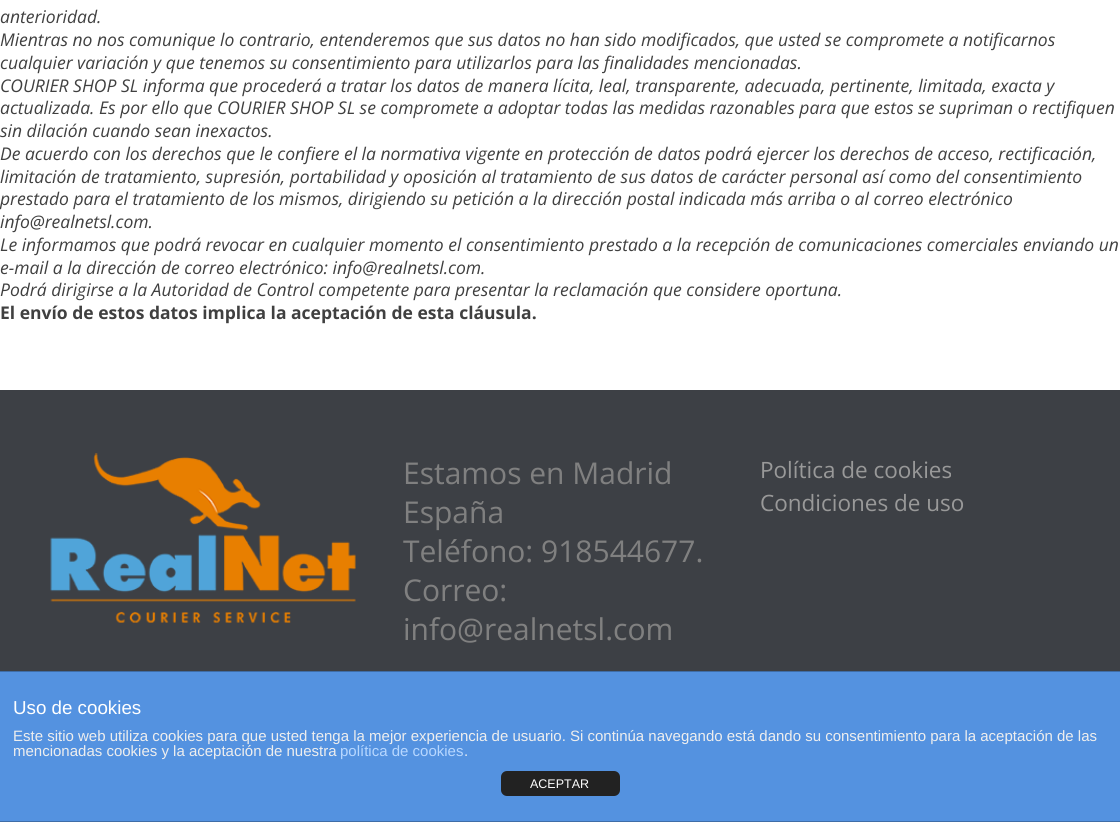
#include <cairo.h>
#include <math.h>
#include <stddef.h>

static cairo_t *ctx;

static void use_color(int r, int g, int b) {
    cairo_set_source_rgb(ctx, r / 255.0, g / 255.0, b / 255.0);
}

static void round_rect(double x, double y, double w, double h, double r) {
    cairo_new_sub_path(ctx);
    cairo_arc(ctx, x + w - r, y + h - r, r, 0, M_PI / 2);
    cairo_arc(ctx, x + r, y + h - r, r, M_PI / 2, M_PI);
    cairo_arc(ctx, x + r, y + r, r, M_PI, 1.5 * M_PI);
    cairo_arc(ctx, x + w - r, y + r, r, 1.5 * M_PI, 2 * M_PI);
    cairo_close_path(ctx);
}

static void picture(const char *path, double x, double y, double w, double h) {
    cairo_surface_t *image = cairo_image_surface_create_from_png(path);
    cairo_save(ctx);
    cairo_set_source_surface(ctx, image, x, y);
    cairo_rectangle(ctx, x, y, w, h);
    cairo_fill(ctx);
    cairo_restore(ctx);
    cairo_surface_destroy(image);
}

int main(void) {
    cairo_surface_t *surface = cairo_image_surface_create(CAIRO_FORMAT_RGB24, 1120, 822);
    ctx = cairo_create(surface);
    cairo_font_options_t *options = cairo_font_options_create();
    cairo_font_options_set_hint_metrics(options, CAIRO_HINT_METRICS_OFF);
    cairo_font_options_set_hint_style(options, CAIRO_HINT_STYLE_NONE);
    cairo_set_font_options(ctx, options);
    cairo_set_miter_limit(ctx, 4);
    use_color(255, 255, 255);
    cairo_paint(ctx);
    cairo_select_font_face(ctx, "Open Sans", CAIRO_FONT_SLANT_ITALIC, CAIRO_FONT_WEIGHT_NORMAL);
    cairo_set_font_size(ctx, 17.5);
    use_color(64, 64, 64);
    cairo_move_to(ctx, 0, 23);
    cairo_show_text(ctx, "anterioridad.");
    cairo_move_to(ctx, 0, 46);
    cairo_show_text(ctx, "Mientras no nos comunique lo contrario, entenderemos que sus datos no han sido modificados, que usted se compromete a notificarnos");
    cairo_move_to(ctx, 0, 69);
    cairo_show_text(ctx, "cualquier variación y que tenemos su consentimiento para utilizarlos para las finalidades mencionadas.");
    cairo_move_to(ctx, 0, 92);
    cairo_show_text(ctx, "COURIER SHOP SL informa que procederá a tratar los datos de manera lícita, leal, transparente, adecuada, pertinente, limitada, exacta y");
    cairo_move_to(ctx, 0, 114);
    cairo_show_text(ctx, "actualizada. Es por ello que COURIER SHOP SL se compromete a adoptar todas las medidas razonables para que estos se supriman o rectifiquen");
    cairo_move_to(ctx, 0, 137);
    cairo_show_text(ctx, "sin dilación cuando sean inexactos.");
    cairo_move_to(ctx, 0, 160);
    cairo_show_text(ctx, "De acuerdo con los derechos que le confiere el la normativa vigente en protección de datos podrá ejercer los derechos de acceso, rectificación,");
    cairo_move_to(ctx, 0, 183);
    cairo_show_text(ctx, "limitación de tratamiento, supresión, portabilidad y oposición al tratamiento de sus datos de carácter personal así como del consentimiento");
    cairo_move_to(ctx, 0, 205);
    cairo_show_text(ctx, "prestado para el tratamiento de los mismos, dirigiendo su petición a la dirección postal indicada más arriba o al correo electrónico");
    cairo_move_to(ctx, 0, 228);
    cairo_show_text(ctx, "info@realnetsl.com.");
    cairo_move_to(ctx, 0, 251);
    cairo_show_text(ctx, "Le informamos que podrá revocar en cualquier momento el consentimiento prestado a la recepción de comunicaciones comerciales enviando un");
    cairo_move_to(ctx, 0, 274);
    cairo_show_text(ctx, "e-mail a la dirección de correo electrónico: info@realnetsl.com.");
    cairo_move_to(ctx, 0, 296);
    cairo_show_text(ctx, "Podrá dirigirse a la Autoridad de Control competente para presentar la reclamación que considere oportuna.");
    cairo_select_font_face(ctx, "Open Sans", CAIRO_FONT_SLANT_NORMAL, CAIRO_FONT_WEIGHT_BOLD);
    cairo_move_to(ctx, 0, 319);
    cairo_show_text(ctx, "El envío de estos datos implica la aceptación de esta cláusula.");
    use_color(61, 64, 69);
    cairo_rectangle(ctx, 0, 390, 1120, 281);
    cairo_fill(ctx);
    picture("img1.png", 50, 453, 306, 170);
    cairo_select_font_face(ctx, "Open Sans", CAIRO_FONT_SLANT_NORMAL, CAIRO_FONT_WEIGHT_NORMAL);
    cairo_set_font_size(ctx, 30);
    use_color(128, 128, 128);
    cairo_move_to(ctx, 403, 484);
    cairo_show_text(ctx, "Estamos en Madrid");
    cairo_move_to(ctx, 403, 523);
    cairo_show_text(ctx, "España");
    cairo_move_to(ctx, 403, 562);
    cairo_show_text(ctx, "Teléfono: 918544677.");
    cairo_move_to(ctx, 403, 601);
    cairo_show_text(ctx, "Correo:");
    cairo_move_to(ctx, 403, 640);
    cairo_show_text(ctx, "info@realnetsl.com");
    cairo_set_font_size(ctx, 22.5);
    use_color(153, 153, 153);
    cairo_move_to(ctx, 760, 478);
    cairo_show_text(ctx, "Política de cookies");
    cairo_move_to(ctx, 760, 511);
    cairo_show_text(ctx, "Condiciones de uso");
    use_color(84, 146, 224);
    cairo_rectangle(ctx, 0, 672, 1120, 149);
    cairo_fill(ctx);
    use_color(63, 109, 167);
    cairo_rectangle(ctx, 0, 671, 1120, 1);
    cairo_fill(ctx);
    cairo_rectangle(ctx, 0, 821, 1120, 1);
    cairo_fill(ctx);
    cairo_select_font_face(ctx, "Liberation Sans", CAIRO_FONT_SLANT_NORMAL, CAIRO_FONT_WEIGHT_NORMAL);
    cairo_set_font_size(ctx, 18.75);
    use_color(255, 255, 255);
    cairo_move_to(ctx, 13, 714);
    cairo_show_text(ctx, "Uso de cookies");
    cairo_set_font_size(ctx, 15);
    use_color(238, 238, 238);
    cairo_move_to(ctx, 13, 741);
    cairo_show_text(ctx, "Este sitio web utiliza cookies para que usted tenga la mejor experiencia de usuario. Si continúa navegando está dando su consentimiento para la aceptación de las");
    cairo_move_to(ctx, 13, 756);
    cairo_show_text(ctx, "mencionadas cookies y la aceptación de nuestra");
    use_color(183, 215, 255);
    cairo_move_to(ctx, 340, 756);
    cairo_show_text(ctx, "política de cookies");
    use_color(238, 238, 238);
    cairo_move_to(ctx, 464, 756);
    cairo_show_text(ctx, ".");
    use_color(34, 34, 34);
    round_rect(501, 771, 119, 25, 6);
    cairo_fill(ctx);
    cairo_set_font_size(ctx, 12.5);
    use_color(255, 255, 255);
    cairo_move_to(ctx, 530, 788);
    cairo_show_text(ctx, "ACEPTAR");
    cairo_surface_write_to_png(surface, "result.png");
    cairo_font_options_destroy(options);
    cairo_destroy(ctx);
    cairo_surface_destroy(surface);
    return 0;
}
